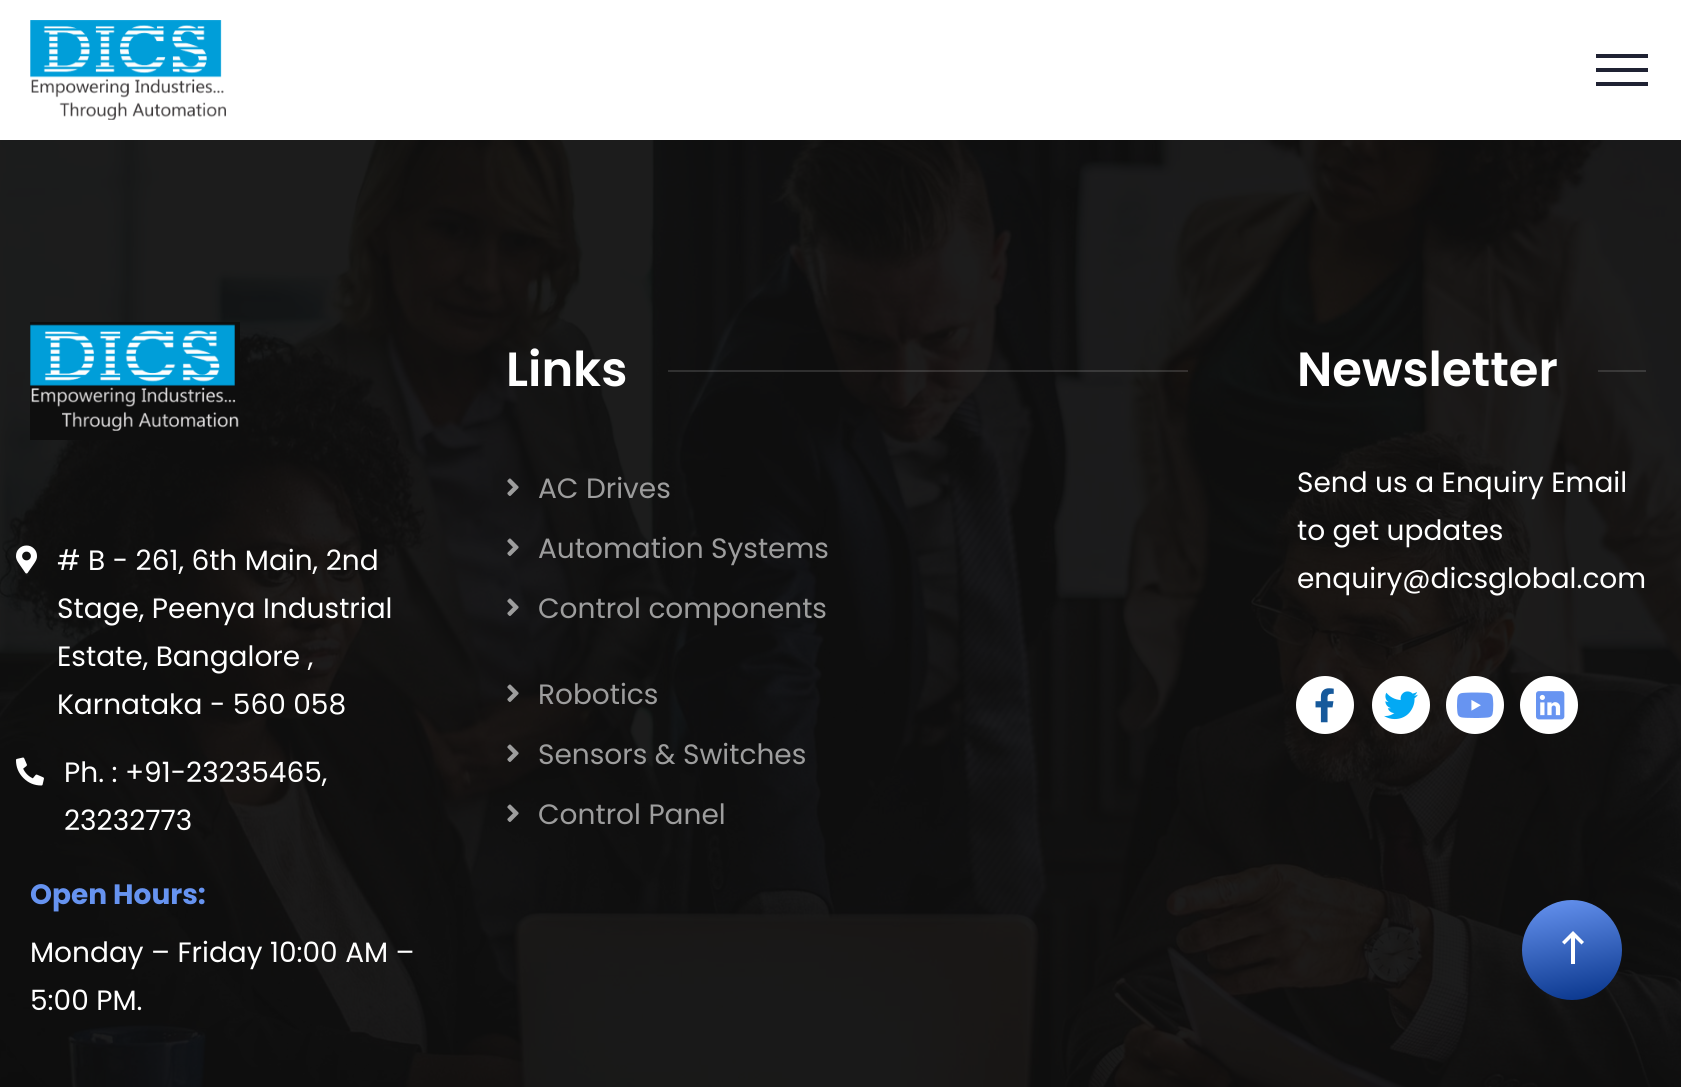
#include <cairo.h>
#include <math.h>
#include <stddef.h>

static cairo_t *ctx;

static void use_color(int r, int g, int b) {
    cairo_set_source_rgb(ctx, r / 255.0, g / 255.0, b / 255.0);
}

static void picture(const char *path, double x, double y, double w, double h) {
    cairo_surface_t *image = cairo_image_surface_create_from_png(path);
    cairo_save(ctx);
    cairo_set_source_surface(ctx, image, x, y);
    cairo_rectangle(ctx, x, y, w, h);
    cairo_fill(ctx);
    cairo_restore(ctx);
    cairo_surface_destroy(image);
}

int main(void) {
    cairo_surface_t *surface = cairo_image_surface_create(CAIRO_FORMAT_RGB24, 1681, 1087);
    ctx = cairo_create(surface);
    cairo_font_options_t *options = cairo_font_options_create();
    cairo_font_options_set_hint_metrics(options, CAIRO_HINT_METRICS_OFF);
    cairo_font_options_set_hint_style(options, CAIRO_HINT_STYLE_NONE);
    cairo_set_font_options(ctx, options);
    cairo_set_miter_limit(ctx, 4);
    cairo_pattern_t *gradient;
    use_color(255, 255, 255);
    cairo_paint(ctx);
    picture("img1.png", 30, 20, 196, 100);
    use_color(31, 34, 51);
    cairo_rectangle(ctx, 1596, 54, 52, 4);
    cairo_fill(ctx);
    cairo_rectangle(ctx, 1596, 68, 52, 4);
    cairo_fill(ctx);
    cairo_rectangle(ctx, 1596, 82, 52, 4);
    cairo_fill(ctx);
    picture("img2.png", 0, 140, 1681, 947);
    cairo_select_font_face(ctx, "Poppins SemiBold", CAIRO_FONT_SLANT_NORMAL, CAIRO_FONT_WEIGHT_NORMAL);
    cairo_set_font_size(ctx, 48);
    use_color(255, 255, 255);
    cairo_move_to(ctx, 506, 386);
    cairo_show_text(ctx, "Links");
    cairo_set_source_rgba(ctx, 0.914, 0.918, 0.933, 0.15);
    cairo_rectangle(ctx, 668, 370, 520, 2);
    cairo_fill(ctx);
    picture("img3.png", 507, 478, 12, 18);
    cairo_select_font_face(ctx, "Poppins", CAIRO_FONT_SLANT_NORMAL, CAIRO_FONT_WEIGHT_NORMAL);
    cairo_set_font_size(ctx, 28);
    use_color(157, 157, 157);
    cairo_move_to(ctx, 538, 498);
    cairo_show_text(ctx, "AC Drives");
    picture("img4.png", 507, 538, 12, 18);
    cairo_move_to(ctx, 538, 558);
    cairo_show_text(ctx, "Automation Systems");
    picture("img5.png", 507, 598, 12, 18);
    cairo_move_to(ctx, 538, 618);
    cairo_show_text(ctx, "Control components");
    picture("img6.png", 507, 684, 12, 18);
    cairo_move_to(ctx, 538, 704);
    cairo_show_text(ctx, "Robotics");
    picture("img7.png", 507, 744, 12, 18);
    cairo_move_to(ctx, 538, 764);
    cairo_show_text(ctx, "Sensors & Switches");
    picture("img8.png", 507, 804, 12, 18);
    cairo_move_to(ctx, 538, 824);
    cairo_show_text(ctx, "Control Panel");
    cairo_select_font_face(ctx, "Poppins SemiBold", CAIRO_FONT_SLANT_NORMAL, CAIRO_FONT_WEIGHT_NORMAL);
    cairo_set_font_size(ctx, 48);
    use_color(255, 255, 255);
    cairo_move_to(ctx, 1297, 386);
    cairo_show_text(ctx, "Newsletter");
    cairo_set_source_rgba(ctx, 0.914, 0.918, 0.933, 0.15);
    cairo_rectangle(ctx, 1598, 370, 48, 2);
    cairo_fill(ctx);
    cairo_select_font_face(ctx, "Poppins", CAIRO_FONT_SLANT_NORMAL, CAIRO_FONT_WEIGHT_NORMAL);
    cairo_set_font_size(ctx, 28);
    use_color(255, 255, 255);
    cairo_move_to(ctx, 1297, 492);
    cairo_show_text(ctx, "Send us a Enquiry Email");
    cairo_move_to(ctx, 1297, 540);
    cairo_show_text(ctx, "to get updates");
    cairo_move_to(ctx, 1297, 588);
    cairo_show_text(ctx, "enquiry@dicsglobal.com");
    cairo_new_path(ctx);
    cairo_arc(ctx, 1325, 705, 29, 0, 2 * M_PI);
    cairo_fill(ctx);
    picture("img9.png", 1315, 688, 19, 35);
    cairo_arc(ctx, 1401, 705, 29, 0, 2 * M_PI);
    cairo_fill(ctx);
    picture("img10.png", 1384, 691, 34, 29);
    cairo_arc(ctx, 1475, 705, 29, 0, 2 * M_PI);
    cairo_fill(ctx);
    picture("img11.png", 1457, 692, 37, 26);
    cairo_arc(ctx, 1549, 705, 29, 0, 2 * M_PI);
    cairo_fill(ctx);
    picture("img12.png", 1536, 691, 29, 29);
    picture("img13.png", 30, 322, 210, 118);
    picture("img14.png", 16, 545, 21, 29);
    cairo_move_to(ctx, 57, 570);
    cairo_show_text(ctx, "# B - 261, 6th Main, 2nd");
    cairo_move_to(ctx, 57, 618);
    cairo_show_text(ctx, "Stage, Peenya Industrial");
    cairo_move_to(ctx, 57, 666);
    cairo_show_text(ctx, "Estate, Bangalore ,");
    cairo_move_to(ctx, 57, 714);
    cairo_show_text(ctx, "Karnataka - 560 058");
    picture("img15.png", 16, 757, 28, 29);
    cairo_move_to(ctx, 64, 782);
    cairo_show_text(ctx, "Ph. : +91-23235465,");
    cairo_move_to(ctx, 64, 830);
    cairo_show_text(ctx, "23232773");
    cairo_select_font_face(ctx, "Poppins", CAIRO_FONT_SLANT_NORMAL, CAIRO_FONT_WEIGHT_BOLD);
    use_color(102, 147, 240);
    cairo_move_to(ctx, 30, 904);
    cairo_show_text(ctx, "Open Hours:");
    cairo_select_font_face(ctx, "Poppins", CAIRO_FONT_SLANT_NORMAL, CAIRO_FONT_WEIGHT_NORMAL);
    use_color(255, 255, 255);
    cairo_move_to(ctx, 30, 962);
    cairo_show_text(ctx, "Monday – Friday 10:00 AM –");
    cairo_move_to(ctx, 30, 1010);
    cairo_show_text(ctx, "5:00 PM.");
    gradient = cairo_pattern_create_linear(1562, 893, 1582, 1007);
    cairo_pattern_add_color_stop_rgba(gradient, 0, 0.404, 0.58, 0.945, 1);
    cairo_pattern_add_color_stop_rgba(gradient, 1, 0.024, 0.2, 0.537, 1);
    cairo_set_source(ctx, gradient);
    cairo_pattern_destroy(gradient);
    cairo_new_path(ctx);
    cairo_arc(ctx, 1572, 950, 50, 0, 2 * M_PI);
    cairo_fill(ctx);
    use_color(255, 255, 255);
    cairo_new_path(ctx);
    cairo_move_to(ctx, 1571, 964);
    cairo_line_to(ctx, 1571, 938);
    cairo_line_to(ctx, 1564.5, 944.5);
    cairo_line_to(ctx, 1562, 942);
    cairo_line_to(ctx, 1573, 931);
    cairo_line_to(ctx, 1584, 942);
    cairo_line_to(ctx, 1581.5, 944.5);
    cairo_line_to(ctx, 1575, 938);
    cairo_line_to(ctx, 1575, 964);
    cairo_close_path(ctx);
    cairo_fill(ctx);
    cairo_surface_write_to_png(surface, "result.png");
    cairo_font_options_destroy(options);
    cairo_destroy(ctx);
    cairo_surface_destroy(surface);
    return 0;
}
